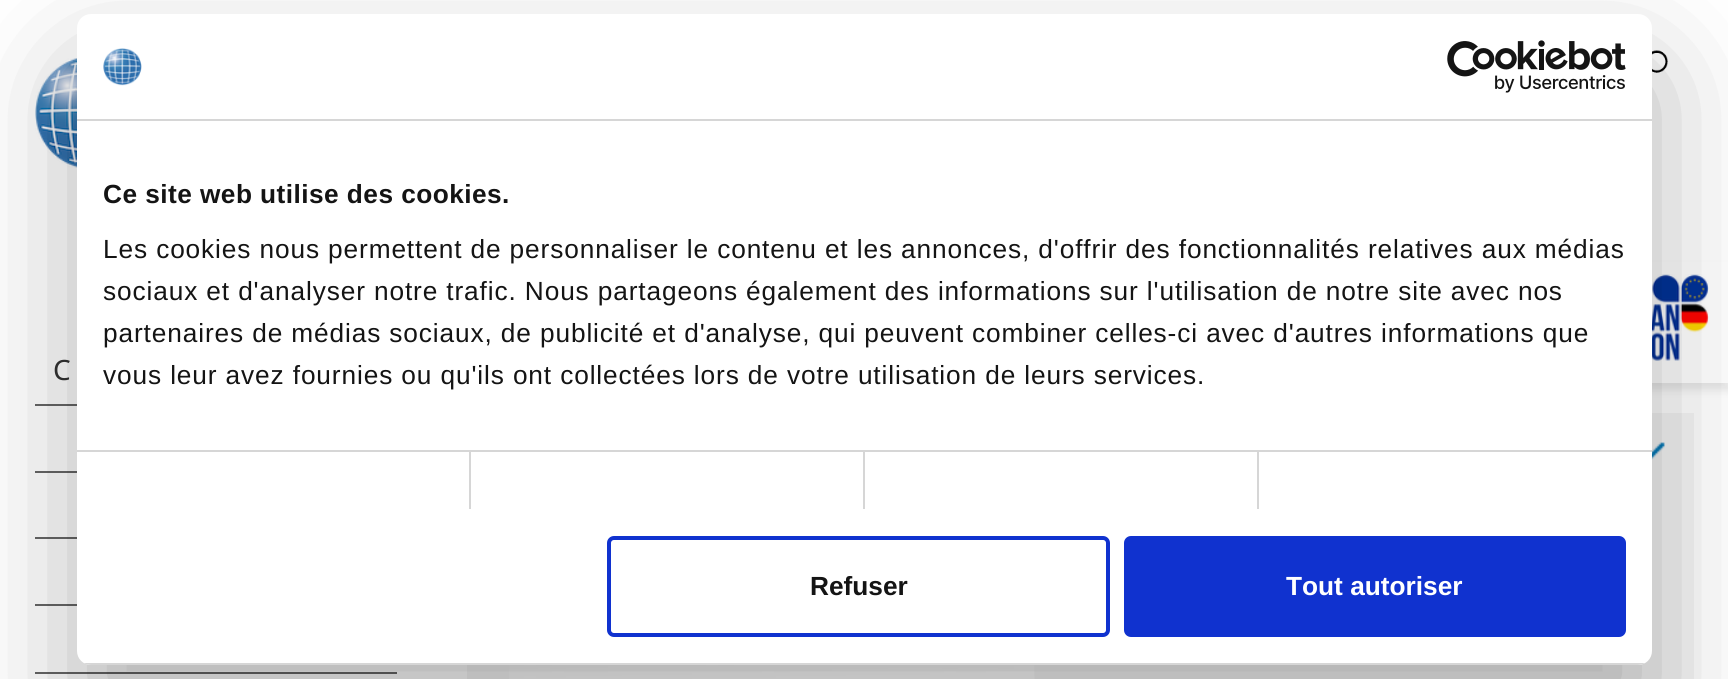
#include <cairo.h>
#include <math.h>
#include <stddef.h>

static cairo_t *ctx;

static void use_color(int r, int g, int b) {
    cairo_set_source_rgb(ctx, r / 255.0, g / 255.0, b / 255.0);
}

static void spaced_text(double x, double y, const char *s, double letter, double word) {
    cairo_move_to(ctx, x, y);
    while (*s) {
        char ch[5] = {0};
        int n = 0;
        do ch[n++] = *s++; while ((*s & 0xC0) == 0x80);
        cairo_show_text(ctx, ch);
        cairo_rel_move_to(ctx, letter + word * (*ch == ' '), 0);
    }
}

static void round_rect(double x, double y, double w, double h, double r) {
    cairo_new_sub_path(ctx);
    cairo_arc(ctx, x + w - r, y + h - r, r, 0, M_PI / 2);
    cairo_arc(ctx, x + r, y + h - r, r, M_PI / 2, M_PI);
    cairo_arc(ctx, x + r, y + r, r, M_PI, 1.5 * M_PI);
    cairo_arc(ctx, x + w - r, y + r, r, 1.5 * M_PI, 2 * M_PI);
    cairo_close_path(ctx);
}

static void shadow(double x, double y, double w, double h, double r, double blur, double alpha) {
    cairo_push_group_with_content(ctx, CAIRO_CONTENT_ALPHA);
    cairo_set_operator(ctx, CAIRO_OPERATOR_SOURCE);
    for (int i = 15; i >= -15 && fmin(w, h) + blur * i / 3 > 0; i -= 2) {
        double e = blur * i / 6;
        cairo_set_source_rgba(ctx, 0, 0, 0, alpha * erfc((i - 1) / 8.5) / 2);
        round_rect(x - e, y - e, w + 2 * e, h + 2 * e, fmax(0, fmin(r + e + blur * .6, fmin(w, h) / 2 + e)));
        cairo_fill(ctx);
    }
    cairo_pattern_t *soft = cairo_pop_group(ctx);
    cairo_mask(ctx, soft);
    cairo_pattern_destroy(soft);
}

static void picture(const char *path, double x, double y, double w, double h) {
    cairo_surface_t *image = cairo_image_surface_create_from_png(path);
    cairo_save(ctx);
    cairo_set_source_surface(ctx, image, x, y);
    cairo_rectangle(ctx, x, y, w, h);
    cairo_fill(ctx);
    cairo_restore(ctx);
    cairo_surface_destroy(image);
}

int main(void) {
    cairo_surface_t *surface = cairo_image_surface_create(CAIRO_FORMAT_RGB24, 1728, 679);
    ctx = cairo_create(surface);
    cairo_font_options_t *options = cairo_font_options_create();
    cairo_font_options_set_hint_metrics(options, CAIRO_HINT_METRICS_OFF);
    cairo_font_options_set_hint_style(options, CAIRO_HINT_STYLE_NONE);
    cairo_set_font_options(ctx, options);
    cairo_set_miter_limit(ctx, 4);
    use_color(255, 255, 255);
    cairo_paint(ctx);
    picture("img1.png", 35, 58, 42, 110);
    picture("img2.png", 1652, 50, 16, 29);
    use_color(102, 102, 102);
    cairo_rectangle(ctx, 35, 404, 42, 2);
    cairo_fill(ctx);
    cairo_select_font_face(ctx, "Noto Sans", CAIRO_FONT_SLANT_NORMAL, CAIRO_FONT_WEIGHT_NORMAL);
    cairo_set_font_size(ctx, 28);
    use_color(51, 51, 51);
    cairo_move_to(ctx, 53, 380);
    cairo_show_text(ctx, "C");
    use_color(102, 102, 102);
    cairo_rectangle(ctx, 35, 471, 42, 2);
    cairo_fill(ctx);
    cairo_rectangle(ctx, 35, 537, 42, 2);
    cairo_fill(ctx);
    cairo_rectangle(ctx, 35, 604, 42, 2);
    cairo_fill(ctx);
    cairo_rectangle(ctx, 35, 672, 362, 2);
    cairo_fill(ctx);
    use_color(245, 245, 245);
    cairo_rectangle(ctx, 467, 413, 1227, 266);
    cairo_fill(ctx);
    picture("img3.png", 1652, 442, 13, 18);
    picture("img4.png", 509, 665, 526, 14);
    use_color(0, 0, 0);
    shadow(1545, 268, 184, 122, 0, 4.5, 0.1);
    use_color(255, 255, 255);
    cairo_rectangle(ctx, 1652, 262, 76, 121);
    cairo_fill(ctx);
    picture("img7.png", 1652, 274, 57, 87);
    use_color(0, 0, 0);
    shadow(77, 70, 1575, 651, 14, 59.5, 0.3);
    use_color(255, 255, 255);
    round_rect(77, 14, 1575, 651, 14);
    cairo_fill(ctx);
    use_color(214, 214, 214);
    cairo_rectangle(ctx, 77, 119, 1575, 2);
    cairo_fill(ctx);
    picture("img5.png", 103, 48, 39, 38);
    picture("img6.png", 1447, 40, 179, 53);
    cairo_rectangle(ctx, 77, 450, 1575, 2);
    cairo_fill(ctx);
    cairo_select_font_face(ctx, "Liberation Sans", CAIRO_FONT_SLANT_NORMAL, CAIRO_FONT_WEIGHT_BOLD);
    cairo_set_font_size(ctx, 26.25);
    use_color(20, 20, 20);
    spaced_text(103, 203, "Ce site web utilise des cookies.", 0.45, 0);
    cairo_select_font_face(ctx, "Liberation Sans", CAIRO_FONT_SLANT_NORMAL, CAIRO_FONT_WEIGHT_NORMAL);
    spaced_text(103, 258, "Les cookies nous permettent de personnaliser le contenu et les annonces, d'offrir des fonctionnalités relatives aux médias", 0.88, 0);
    spaced_text(103, 300, "sociaux et d'analyser notre trafic. Nous partageons également des informations sur l'utilisation de notre site avec nos", 0.88, 0);
    spaced_text(103, 342, "partenaires de médias sociaux, de publicité et d'analyse, qui peuvent combiner celles-ci avec d'autres informations que", 0.88, 0);
    spaced_text(103, 384, "vous leur avez fournies ou qu'ils ont collectées lors de votre utilisation de leurs services.", 0.88, 0);
    use_color(214, 214, 214);
    cairo_rectangle(ctx, 469, 452, 2, 57);
    cairo_fill(ctx);
    cairo_rectangle(ctx, 863, 452, 2, 57);
    cairo_fill(ctx);
    cairo_rectangle(ctx, 1257, 452, 2, 57);
    cairo_fill(ctx);
    cairo_save(ctx);
    round_rect(77, 14, 1575, 651, 14);
    cairo_clip(ctx);
    cairo_rectangle(ctx, 77, 663, 1575, 2);
    cairo_fill(ctx);
    cairo_restore(ctx);
    round_rect(609, 538, 499, 97, 5);
    use_color(16, 50, 207);
    cairo_set_line_width(ctx, 4);
    cairo_stroke(ctx);
    cairo_select_font_face(ctx, "Liberation Sans", CAIRO_FONT_SLANT_NORMAL, CAIRO_FONT_WEIGHT_BOLD);
    use_color(20, 20, 20);
    cairo_move_to(ctx, 810, 595);
    cairo_show_text(ctx, "Refuser");
    use_color(16, 50, 207);
    round_rect(1126, 538, 498, 97, 5);
    cairo_fill_preserve(ctx);
    cairo_stroke(ctx);
    use_color(255, 255, 255);
    cairo_move_to(ctx, 1286, 595);
    cairo_show_text(ctx, "Tout autoriser");
    cairo_surface_write_to_png(surface, "result.png");
    cairo_font_options_destroy(options);
    cairo_destroy(ctx);
    cairo_surface_destroy(surface);
    return 0;
}
